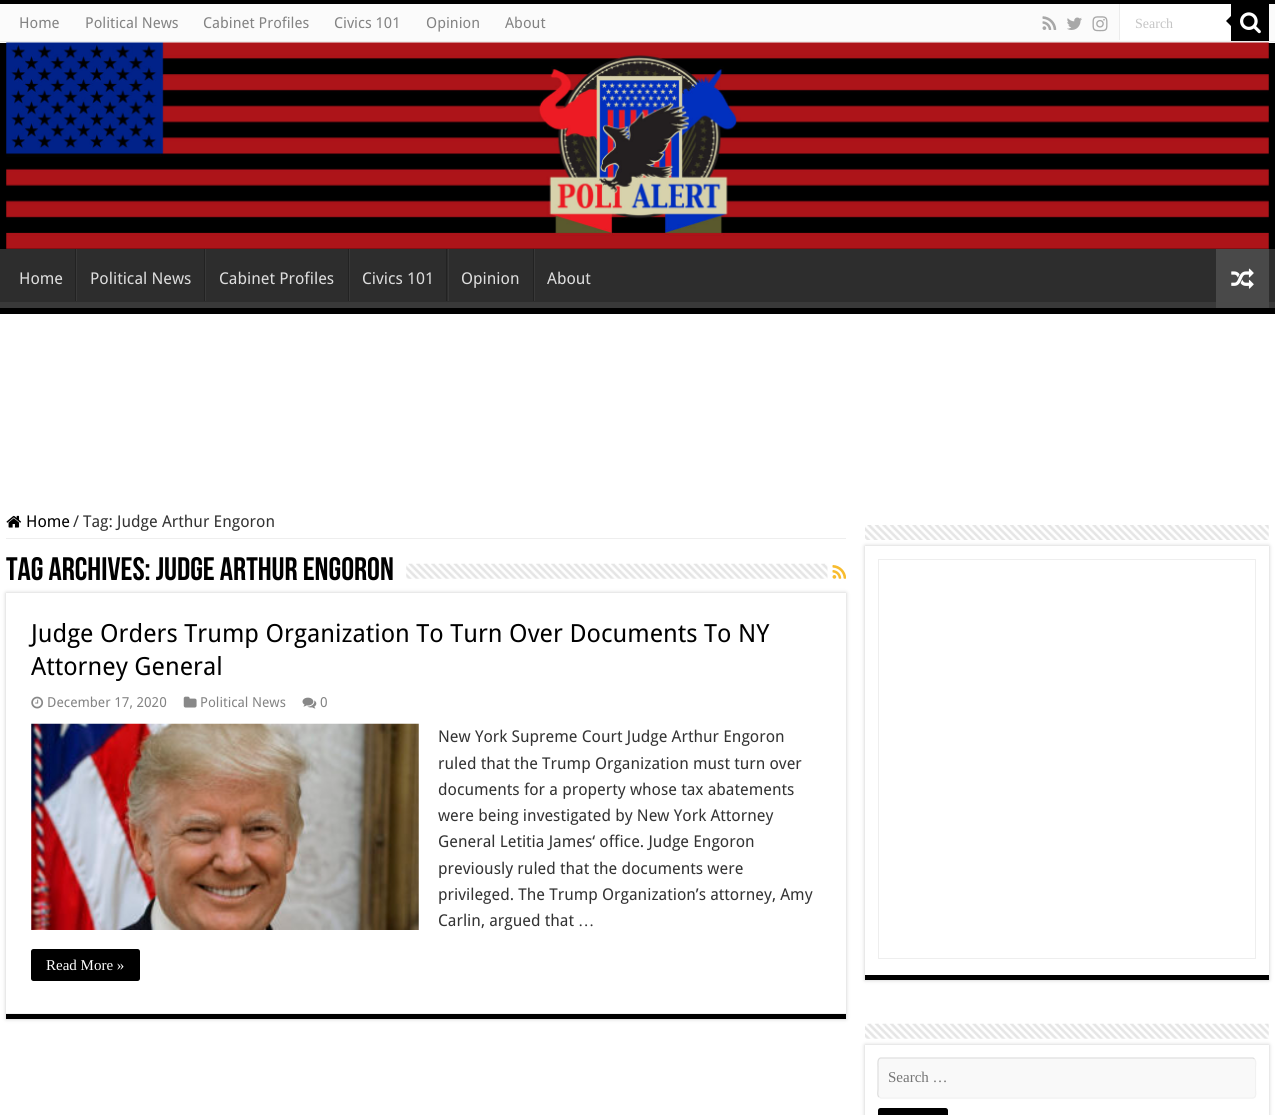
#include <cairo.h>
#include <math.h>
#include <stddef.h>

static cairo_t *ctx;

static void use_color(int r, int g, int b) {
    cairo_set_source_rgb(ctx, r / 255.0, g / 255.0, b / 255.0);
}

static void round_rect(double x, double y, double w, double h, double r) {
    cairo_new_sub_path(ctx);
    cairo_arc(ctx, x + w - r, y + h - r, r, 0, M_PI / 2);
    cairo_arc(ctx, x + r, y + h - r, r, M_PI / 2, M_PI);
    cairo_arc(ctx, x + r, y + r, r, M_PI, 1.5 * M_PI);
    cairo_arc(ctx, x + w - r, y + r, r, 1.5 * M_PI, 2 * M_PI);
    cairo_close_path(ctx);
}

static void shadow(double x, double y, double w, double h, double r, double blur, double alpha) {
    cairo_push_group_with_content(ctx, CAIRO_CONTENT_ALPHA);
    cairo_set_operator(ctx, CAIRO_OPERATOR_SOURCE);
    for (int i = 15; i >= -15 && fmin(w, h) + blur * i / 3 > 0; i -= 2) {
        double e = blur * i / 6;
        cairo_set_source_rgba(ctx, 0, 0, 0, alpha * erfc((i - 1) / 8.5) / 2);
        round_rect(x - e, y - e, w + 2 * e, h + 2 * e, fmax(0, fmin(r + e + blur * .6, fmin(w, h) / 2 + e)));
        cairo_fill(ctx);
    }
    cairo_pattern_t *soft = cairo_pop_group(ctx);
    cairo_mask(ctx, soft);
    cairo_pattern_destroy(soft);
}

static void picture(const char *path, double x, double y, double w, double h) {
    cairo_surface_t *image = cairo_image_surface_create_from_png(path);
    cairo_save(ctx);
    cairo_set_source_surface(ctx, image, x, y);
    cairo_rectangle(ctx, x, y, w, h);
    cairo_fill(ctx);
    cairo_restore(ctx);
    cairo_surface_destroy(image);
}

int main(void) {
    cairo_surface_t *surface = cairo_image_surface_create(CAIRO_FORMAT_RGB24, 1275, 1115);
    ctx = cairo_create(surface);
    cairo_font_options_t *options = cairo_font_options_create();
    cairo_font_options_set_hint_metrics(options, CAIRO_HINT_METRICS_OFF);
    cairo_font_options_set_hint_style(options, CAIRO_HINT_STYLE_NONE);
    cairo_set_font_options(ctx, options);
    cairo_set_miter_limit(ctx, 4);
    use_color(255, 255, 255);
    cairo_paint(ctx);
    use_color(0, 0, 0);
    cairo_rectangle(ctx, 0, 0, 1275, 249);
    cairo_fill(ctx);
    use_color(251, 251, 251);
    cairo_rectangle(ctx, 0, 4, 1275, 39);
    cairo_fill(ctx);
    use_color(236, 236, 236);
    cairo_rectangle(ctx, 0, 41, 1275, 1);
    cairo_fill(ctx);
    cairo_select_font_face(ctx, "Droid Sans", CAIRO_FONT_SLANT_NORMAL, CAIRO_FONT_WEIGHT_NORMAL);
    cairo_set_font_size(ctx, 15);
    use_color(131, 131, 131);
    cairo_move_to(ctx, 19, 28);
    cairo_show_text(ctx, "Home");
    cairo_move_to(ctx, 85, 28);
    cairo_show_text(ctx, "Political News");
    cairo_move_to(ctx, 203, 28);
    cairo_show_text(ctx, "Cabinet Profiles");
    cairo_move_to(ctx, 334, 28);
    cairo_show_text(ctx, "Civics 101");
    cairo_move_to(ctx, 426, 28);
    cairo_show_text(ctx, "Opinion");
    cairo_move_to(ctx, 505, 28);
    cairo_show_text(ctx, "About");
    picture("img1.png", 1042, 16, 15, 14);
    picture("img2.png", 1067, 17, 15, 13);
    picture("img3.png", 1092, 16, 16, 16);
    use_color(255, 255, 255);
    cairo_rectangle(ctx, 1120, 4, 111, 36);
    cairo_fill(ctx);
    use_color(236, 236, 236);
    cairo_rectangle(ctx, 1119, 4, 1, 36);
    cairo_fill(ctx);
    cairo_select_font_face(ctx, "Liberation Serif", CAIRO_FONT_SLANT_NORMAL, CAIRO_FONT_WEIGHT_NORMAL);
    cairo_set_font_size(ctx, 14);
    use_color(197, 197, 197);
    cairo_move_to(ctx, 1135, 28);
    cairo_show_text(ctx, "Search");
    use_color(0, 0, 0);
    cairo_rectangle(ctx, 1231, 4, 38, 37);
    cairo_fill(ctx);
    picture("img4.png", 1240, 12, 21, 22);
    cairo_new_path(ctx);
    cairo_move_to(ctx, 1231, 16);
    cairo_line_to(ctx, 1231, 26);
    cairo_line_to(ctx, 1226, 21);
    cairo_close_path(ctx);
    cairo_fill(ctx);
    picture("img5.png", 6, 42, 1263, 207);
    use_color(45, 45, 45);
    cairo_rectangle(ctx, 0, 249, 1275, 53);
    cairo_fill(ctx);
    cairo_save(ctx);
    cairo_rectangle(ctx, 0, 249, 1275, 59);
    cairo_clip(ctx);
    use_color(57, 57, 57);
    cairo_set_fill_rule(ctx, CAIRO_FILL_RULE_EVEN_ODD);
    cairo_new_path(ctx);
    cairo_move_to(ctx, -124, 125);
    cairo_line_to(ctx, 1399, 125);
    cairo_line_to(ctx, 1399, 431);
    cairo_line_to(ctx, -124, 431);
    cairo_close_path(ctx);
    cairo_move_to(ctx, -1, 241);
    cairo_line_to(ctx, 1274, 241);
    cairo_curve_to(ctx, 1274, 241, 1275, 242, 1275, 242);
    cairo_line_to(ctx, 1275, 301);
    cairo_curve_to(ctx, 1275, 302, 1274, 302, 1274, 302);
    cairo_line_to(ctx, -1, 302);
    cairo_curve_to(ctx, -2, 302, -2, 302, -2, 301);
    cairo_line_to(ctx, -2, 242);
    cairo_curve_to(ctx, -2, 242, -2, 241, -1, 241);
    cairo_close_path(ctx);
    cairo_fill(ctx);
    cairo_restore(ctx);
    use_color(0, 0, 0);
    cairo_rectangle(ctx, 0, 308, 1275, 6);
    cairo_fill(ctx);
    cairo_select_font_face(ctx, "Droid Sans", CAIRO_FONT_SLANT_NORMAL, CAIRO_FONT_WEIGHT_NORMAL);
    cairo_set_font_size(ctx, 16.25);
    use_color(221, 221, 221);
    cairo_move_to(ctx, 19, 284);
    cairo_show_text(ctx, "Home");
    use_color(34, 34, 34);
    cairo_rectangle(ctx, 75, 249, 1, 52);
    cairo_fill(ctx);
    use_color(56, 56, 56);
    cairo_rectangle(ctx, 76, 249, 1, 52);
    cairo_fill(ctx);
    use_color(221, 221, 221);
    cairo_move_to(ctx, 90, 284);
    cairo_show_text(ctx, "Political News");
    use_color(34, 34, 34);
    cairo_rectangle(ctx, 204, 249, 1, 52);
    cairo_fill(ctx);
    use_color(56, 56, 56);
    cairo_rectangle(ctx, 205, 249, 1, 52);
    cairo_fill(ctx);
    use_color(221, 221, 221);
    cairo_move_to(ctx, 219, 284);
    cairo_show_text(ctx, "Cabinet Profiles");
    use_color(34, 34, 34);
    cairo_rectangle(ctx, 348, 249, 1, 52);
    cairo_fill(ctx);
    use_color(56, 56, 56);
    cairo_rectangle(ctx, 349, 249, 1, 52);
    cairo_fill(ctx);
    use_color(221, 221, 221);
    cairo_move_to(ctx, 362, 284);
    cairo_show_text(ctx, "Civics 101");
    use_color(34, 34, 34);
    cairo_rectangle(ctx, 446, 249, 1, 52);
    cairo_fill(ctx);
    use_color(56, 56, 56);
    cairo_rectangle(ctx, 448, 249, 1, 52);
    cairo_fill(ctx);
    use_color(221, 221, 221);
    cairo_move_to(ctx, 461, 284);
    cairo_show_text(ctx, "Opinion");
    use_color(34, 34, 34);
    cairo_rectangle(ctx, 533, 249, 1, 52);
    cairo_fill(ctx);
    use_color(56, 56, 56);
    cairo_rectangle(ctx, 534, 249, 1, 52);
    cairo_fill(ctx);
    use_color(221, 221, 221);
    cairo_move_to(ctx, 547, 284);
    cairo_show_text(ctx, "About");
    use_color(73, 73, 73);
    cairo_rectangle(ctx, 1216, 249, 53, 59);
    cairo_fill(ctx);
    picture("img6.png", 1231, 268, 23, 21);
    use_color(238, 238, 238);
    cairo_rectangle(ctx, 6, 538, 840, 1);
    cairo_fill(ctx);
    picture("img7.png", 6, 515, 16, 13);
    use_color(0, 0, 0);
    cairo_move_to(ctx, 26, 527);
    cairo_show_text(ctx, "Home");
    use_color(51, 51, 51);
    cairo_move_to(ctx, 73, 527);
    cairo_show_text(ctx, "/");
    cairo_move_to(ctx, 83, 527);
    cairo_show_text(ctx, "Tag: Judge Arthur Engoron");
    cairo_select_font_face(ctx, "Bebas Neue", CAIRO_FONT_SLANT_NORMAL, CAIRO_FONT_WEIGHT_BOLD);
    cairo_set_font_size(ctx, 32.5);
    use_color(0, 0, 0);
    cairo_move_to(ctx, 6, 580);
    cairo_show_text(ctx, "Tag Archives: Judge Arthur Engoron");
    picture("img8.png", 406, 563, 422, 16);
    picture("img9.png", 832, 565, 14, 14);
    use_color(202, 202, 202);
    shadow(6, 593, 840, 426, 0, 2, 1);
    use_color(255, 255, 255);
    cairo_rectangle(ctx, 6, 593, 840, 420);
    cairo_fill(ctx);
    use_color(0, 0, 0);
    cairo_rectangle(ctx, 6, 1014, 840, 5);
    cairo_fill(ctx);
    use_color(242, 242, 242);
    cairo_rectangle(ctx, 6, 1013, 840, 1);
    cairo_fill(ctx);
    cairo_select_font_face(ctx, "Droid Sans", CAIRO_FONT_SLANT_NORMAL, CAIRO_FONT_WEIGHT_NORMAL);
    cairo_set_font_size(ctx, 25);
    use_color(0, 0, 0);
    cairo_move_to(ctx, 31, 642);
    cairo_show_text(ctx, "Judge Orders Trump Organization To Turn Over Documents To NY");
    cairo_move_to(ctx, 31, 675);
    cairo_show_text(ctx, "Attorney General");
    picture("img10.png", 31, 696, 13, 13);
    cairo_set_font_size(ctx, 13.75);
    use_color(131, 131, 131);
    cairo_move_to(ctx, 47, 707);
    cairo_show_text(ctx, "December 17, 2020");
    picture("img11.png", 183, 696, 14, 12);
    cairo_move_to(ctx, 200, 707);
    cairo_show_text(ctx, "Political News");
    picture("img12.png", 302, 697, 15, 12);
    cairo_move_to(ctx, 320, 707);
    cairo_show_text(ctx, "0");
    picture("img13.png", 31, 723, 388, 207);
    cairo_set_font_size(ctx, 16.25);
    use_color(51, 51, 51);
    cairo_move_to(ctx, 438, 742);
    cairo_show_text(ctx, "New York Supreme Court Judge Arthur Engoron");
    cairo_move_to(ctx, 438, 769);
    cairo_show_text(ctx, "ruled that the Trump Organization must turn over");
    cairo_move_to(ctx, 438, 795);
    cairo_show_text(ctx, "documents for a property whose tax abatements");
    cairo_move_to(ctx, 438, 821);
    cairo_show_text(ctx, "were being investigated by New York Attorney");
    cairo_move_to(ctx, 438, 847);
    cairo_show_text(ctx, "General Letitia James‘ office. Judge Engoron");
    cairo_move_to(ctx, 438, 874);
    cairo_show_text(ctx, "previously ruled that the documents were");
    cairo_move_to(ctx, 438, 900);
    cairo_show_text(ctx, "privileged. The Trump Organization’s attorney, Amy");
    cairo_move_to(ctx, 438, 926);
    cairo_show_text(ctx, "Carlin, argued that");
    cairo_select_font_face(ctx, "Liberation Serif", CAIRO_FONT_SLANT_NORMAL, CAIRO_FONT_WEIGHT_NORMAL);
    cairo_move_to(ctx, 578, 926);
    cairo_show_text(ctx, "…");
    use_color(0, 0, 0);
    round_rect(31, 949, 109, 32, 2.5);
    cairo_fill(ctx);
    cairo_set_font_size(ctx, 15);
    use_color(255, 255, 255);
    cairo_move_to(ctx, 46, 970);
    cairo_show_text(ctx, "Read More »");
    use_color(202, 202, 202);
    shadow(865, 546, 404, 434, 0, 2, 1);
    picture("img14.png", 865, 525, 404, 15);
    use_color(255, 255, 255);
    cairo_rectangle(ctx, 865, 546, 404, 429);
    cairo_fill(ctx);
    use_color(0, 0, 0);
    cairo_rectangle(ctx, 865, 975, 404, 5);
    cairo_fill(ctx);
    cairo_rectangle(ctx, 878.5, 559.5, 377, 399);
    use_color(238, 238, 238);
    cairo_set_line_width(ctx, 1);
    cairo_stroke(ctx);
    use_color(202, 202, 202);
    shadow(865, 1045, 404, 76, 0, 2, 1);
    picture("img15.png", 865, 1023, 404, 16);
    use_color(255, 255, 255);
    cairo_rectangle(ctx, 865, 1045, 404, 70);
    cairo_fill(ctx);
    use_color(249, 249, 249);
    round_rect(878, 1058, 378, 41, 4);
    cairo_fill(ctx);
    cairo_new_path(ctx);
    cairo_move_to(ctx, 1254.5, 1059);
    cairo_curve_to(ctx, 1256.5, 1061, 1255.5, 1065.5, 1255.5, 1067);
    cairo_line_to(ctx, 1255.5, 1089.5);
    cairo_curve_to(ctx, 1255.5, 1091.5, 1257, 1098, 1252.5, 1098);
    cairo_line_to(ctx, 881, 1098);
    cairo_line_to(ctx, 879, 1097);
    use_color(241, 241, 241);
    cairo_set_line_width(ctx, 1.2);
    cairo_stroke(ctx);
    cairo_new_path(ctx);
    cairo_move_to(ctx, 879, 1097);
    cairo_curve_to(ctx, 877, 1095.5, 878, 1091, 878, 1089.5);
    cairo_line_to(ctx, 878, 1067);
    cairo_curve_to(ctx, 878, 1064.5, 877, 1058, 881, 1058);
    cairo_line_to(ctx, 1253, 1058);
    cairo_line_to(ctx, 1254.5, 1059);
    use_color(221, 221, 221);
    cairo_stroke(ctx);
    use_color(117, 117, 117);
    cairo_move_to(ctx, 888, 1082);
    cairo_show_text(ctx, "Search …");
    use_color(0, 0, 0);
    round_rect(878, 1108, 70, 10, 2.5);
    cairo_fill(ctx);
    cairo_surface_write_to_png(surface, "result.png");
    cairo_font_options_destroy(options);
    cairo_destroy(ctx);
    cairo_surface_destroy(surface);
    return 0;
}
